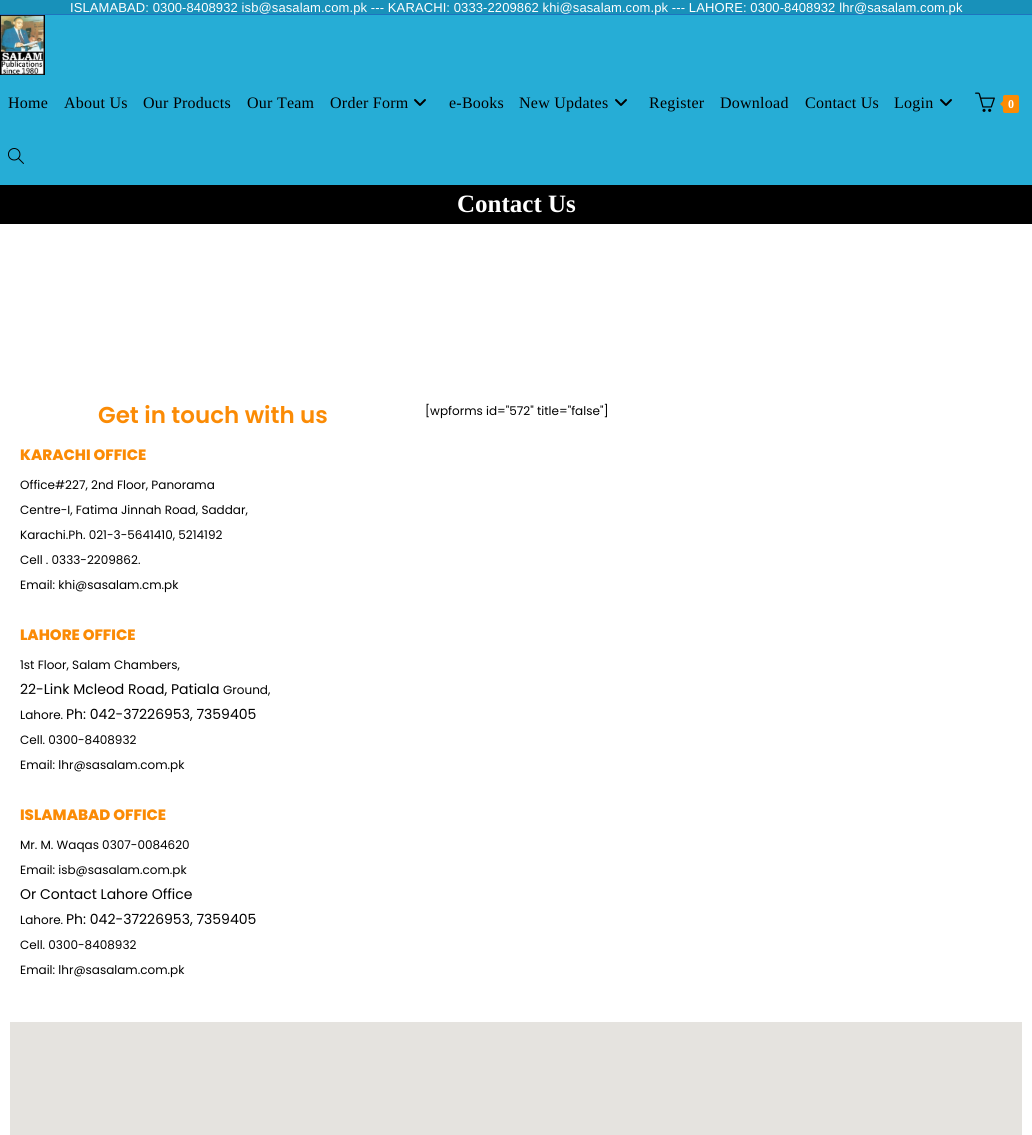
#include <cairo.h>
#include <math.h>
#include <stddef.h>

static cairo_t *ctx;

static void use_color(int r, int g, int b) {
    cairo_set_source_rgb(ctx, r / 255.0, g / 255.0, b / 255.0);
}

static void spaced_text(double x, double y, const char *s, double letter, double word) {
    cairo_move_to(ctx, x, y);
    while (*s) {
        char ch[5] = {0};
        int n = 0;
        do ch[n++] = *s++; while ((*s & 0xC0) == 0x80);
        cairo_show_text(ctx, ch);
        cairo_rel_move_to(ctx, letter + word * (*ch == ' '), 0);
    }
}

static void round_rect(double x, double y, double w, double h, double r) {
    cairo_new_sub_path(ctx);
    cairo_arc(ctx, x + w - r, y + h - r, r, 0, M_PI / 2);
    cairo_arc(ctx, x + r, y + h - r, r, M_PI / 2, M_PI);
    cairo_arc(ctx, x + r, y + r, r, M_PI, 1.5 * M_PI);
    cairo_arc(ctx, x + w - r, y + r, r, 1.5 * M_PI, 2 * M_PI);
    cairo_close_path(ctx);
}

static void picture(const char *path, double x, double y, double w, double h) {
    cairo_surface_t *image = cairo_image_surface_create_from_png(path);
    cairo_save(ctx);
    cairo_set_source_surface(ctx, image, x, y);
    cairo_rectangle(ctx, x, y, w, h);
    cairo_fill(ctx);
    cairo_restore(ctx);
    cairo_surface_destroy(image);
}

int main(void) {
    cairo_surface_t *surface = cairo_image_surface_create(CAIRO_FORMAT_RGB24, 1032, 1135);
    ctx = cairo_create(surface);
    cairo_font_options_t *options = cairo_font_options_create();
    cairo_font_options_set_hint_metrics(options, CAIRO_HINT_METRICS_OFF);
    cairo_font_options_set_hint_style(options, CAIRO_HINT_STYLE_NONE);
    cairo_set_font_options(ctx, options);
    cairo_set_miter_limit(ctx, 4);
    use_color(255, 255, 255);
    cairo_paint(ctx);
    use_color(24, 145, 186);
    cairo_rectangle(ctx, 0, 0, 1032, 14);
    cairo_fill(ctx);
    use_color(30, 115, 190);
    cairo_rectangle(ctx, 0, 14, 1032, 1);
    cairo_fill(ctx);
    cairo_select_font_face(ctx, "Liberation Sans", CAIRO_FONT_SLANT_NORMAL, CAIRO_FONT_WEIGHT_NORMAL);
    cairo_set_font_size(ctx, 13);
    use_color(255, 255, 255);
    spaced_text(70, 12, "ISLAMABAD: 0300-8408932 isb@sasalam.com.pk --- KARACHI: 0333-2209862 khi@sasalam.com.pk --- LAHORE: 0300-8408932 lhr@sasalam.com.pk", 0.1, 0);
    use_color(38, 173, 214);
    cairo_rectangle(ctx, 0, 15, 1032, 170);
    cairo_fill(ctx);
    picture("img1.png", 0, 15, 45, 60);
    cairo_select_font_face(ctx, "Liberation Serif", CAIRO_FONT_SLANT_NORMAL, CAIRO_FONT_WEIGHT_NORMAL);
    cairo_set_font_size(ctx, 16);
    use_color(0, 0, 0);
    spaced_text(8, 108, "Home", 0.25, 0);
    spaced_text(64, 108, "About Us", 0.25, 0);
    spaced_text(143, 108, "Our Products", 0.25, 0);
    spaced_text(247, 108, "Our Team", 0.25, 0);
    spaced_text(330, 108, "Order Form", 0.25, 0);
    picture("img2.png", 414, 99, 12, 7);
    spaced_text(449, 108, "e-Books", 0.25, 0);
    spaced_text(519, 108, "New Updates", 0.25, 0);
    picture("img2.png", 615, 99, 12, 7);
    spaced_text(649, 108, "Register", 0.25, 0);
    spaced_text(720, 108, "Download", 0.25, 0);
    spaced_text(805, 108, "Contact Us", 0.25, 0);
    spaced_text(894, 108, "Login", 0.25, 0);
    picture("img2.png", 940, 99, 12, 7);
    picture("img3.png", 975, 92, 20, 20);
    use_color(251, 139, 5);
    round_rect(1003, 95, 16, 18, 2);
    cairo_fill(ctx);
    cairo_new_path(ctx);
    cairo_move_to(ctx, 1005, 99);
    cairo_line_to(ctx, 1005, 109);
    cairo_line_to(ctx, 1000, 104);
    cairo_close_path(ctx);
    cairo_fill(ctx);
    cairo_select_font_face(ctx, "Liberation Serif", CAIRO_FONT_SLANT_NORMAL, CAIRO_FONT_WEIGHT_BOLD);
    cairo_set_font_size(ctx, 12);
    use_color(255, 255, 255);
    cairo_move_to(ctx, 1008, 108);
    cairo_show_text(ctx, "0");
    picture("img4.png", 8, 148, 16, 16);
    use_color(0, 0, 0);
    cairo_rectangle(ctx, 0, 185, 1032, 39);
    cairo_fill(ctx);
    cairo_set_font_size(ctx, 25);
    use_color(255, 255, 255);
    cairo_move_to(ctx, 457, 212);
    cairo_show_text(ctx, "Contact Us");
    cairo_select_font_face(ctx, "Poppins SemiBold", CAIRO_FONT_SLANT_NORMAL, CAIRO_FONT_WEIGHT_NORMAL);
    cairo_set_font_size(ctx, 23);
    use_color(251, 139, 5);
    cairo_move_to(ctx, 98, 423);
    cairo_show_text(ctx, "Get in touch with us");
    cairo_select_font_face(ctx, "Poppins ExtraBold", CAIRO_FONT_SLANT_NORMAL, CAIRO_FONT_WEIGHT_NORMAL);
    cairo_set_font_size(ctx, 15);
    cairo_move_to(ctx, 20, 460);
    cairo_show_text(ctx, "KARACHI OFFICE");
    cairo_select_font_face(ctx, "Poppins", CAIRO_FONT_SLANT_NORMAL, CAIRO_FONT_WEIGHT_NORMAL);
    cairo_set_font_size(ctx, 12);
    use_color(0, 0, 0);
    cairo_move_to(ctx, 20, 489);
    cairo_show_text(ctx, "Office#227, 2nd Floor, Panorama");
    cairo_move_to(ctx, 20, 514);
    cairo_show_text(ctx, "Centre-I, Fatima Jinnah Road, Saddar,");
    cairo_move_to(ctx, 20, 539);
    cairo_show_text(ctx, "Karachi.Ph. 021-3-5641410, 5214192");
    cairo_move_to(ctx, 20, 564);
    cairo_show_text(ctx, "Cell . 0333-2209862.");
    cairo_move_to(ctx, 20, 589);
    cairo_show_text(ctx, "Email: khi@sasalam.cm.pk");
    cairo_select_font_face(ctx, "Poppins ExtraBold", CAIRO_FONT_SLANT_NORMAL, CAIRO_FONT_WEIGHT_NORMAL);
    cairo_set_font_size(ctx, 15);
    use_color(251, 139, 5);
    cairo_move_to(ctx, 20, 640);
    cairo_show_text(ctx, "LAHORE OFFICE");
    cairo_select_font_face(ctx, "Poppins", CAIRO_FONT_SLANT_NORMAL, CAIRO_FONT_WEIGHT_NORMAL);
    cairo_set_font_size(ctx, 12);
    use_color(0, 0, 0);
    cairo_move_to(ctx, 20, 669);
    cairo_show_text(ctx, "1st Floor, Salam Chambers,");
    cairo_set_font_size(ctx, 14);
    cairo_move_to(ctx, 20, 694);
    cairo_show_text(ctx, "22-Link Mcleod Road, Patiala");
    cairo_set_font_size(ctx, 12);
    cairo_move_to(ctx, 223, 694);
    cairo_show_text(ctx, "Ground,");
    cairo_move_to(ctx, 20, 719);
    cairo_show_text(ctx, "Lahore.");
    cairo_set_font_size(ctx, 14);
    cairo_move_to(ctx, 66, 719);
    cairo_show_text(ctx, "Ph: 042-37226953, 7359405");
    cairo_set_font_size(ctx, 12);
    cairo_move_to(ctx, 20, 744);
    cairo_show_text(ctx, "Cell. 0300-8408932");
    cairo_move_to(ctx, 20, 769);
    cairo_show_text(ctx, "Email: lhr@sasalam.com.pk");
    cairo_select_font_face(ctx, "Poppins ExtraBold", CAIRO_FONT_SLANT_NORMAL, CAIRO_FONT_WEIGHT_NORMAL);
    cairo_set_font_size(ctx, 15);
    use_color(251, 139, 5);
    cairo_move_to(ctx, 20, 820);
    cairo_show_text(ctx, "ISLAMABAD OFFICE");
    cairo_select_font_face(ctx, "Poppins", CAIRO_FONT_SLANT_NORMAL, CAIRO_FONT_WEIGHT_NORMAL);
    cairo_set_font_size(ctx, 12);
    use_color(0, 0, 0);
    cairo_move_to(ctx, 20, 849);
    cairo_show_text(ctx, "Mr. M. Waqas 0307-0084620");
    cairo_move_to(ctx, 20, 874);
    cairo_show_text(ctx, "Email: isb@sasalam.com.pk");
    cairo_set_font_size(ctx, 14);
    cairo_move_to(ctx, 20, 899);
    cairo_show_text(ctx, "Or Contact Lahore Office");
    cairo_set_font_size(ctx, 12);
    cairo_move_to(ctx, 20, 924);
    cairo_show_text(ctx, "Lahore.");
    cairo_set_font_size(ctx, 14);
    cairo_move_to(ctx, 66, 924);
    cairo_show_text(ctx, "Ph: 042-37226953, 7359405");
    cairo_set_font_size(ctx, 12);
    cairo_move_to(ctx, 20, 949);
    cairo_show_text(ctx, "Cell. 0300-8408932");
    cairo_move_to(ctx, 20, 974);
    cairo_show_text(ctx, "Email: lhr@sasalam.com.pk");
    cairo_move_to(ctx, 425, 415);
    cairo_show_text(ctx, "[wpforms id=\"572\" title=\"false\"]");
    use_color(229, 227, 223);
    cairo_rectangle(ctx, 10, 1022, 1012, 113);
    cairo_fill(ctx);
    cairo_surface_write_to_png(surface, "result.png");
    cairo_font_options_destroy(options);
    cairo_destroy(ctx);
    cairo_surface_destroy(surface);
    return 0;
}
